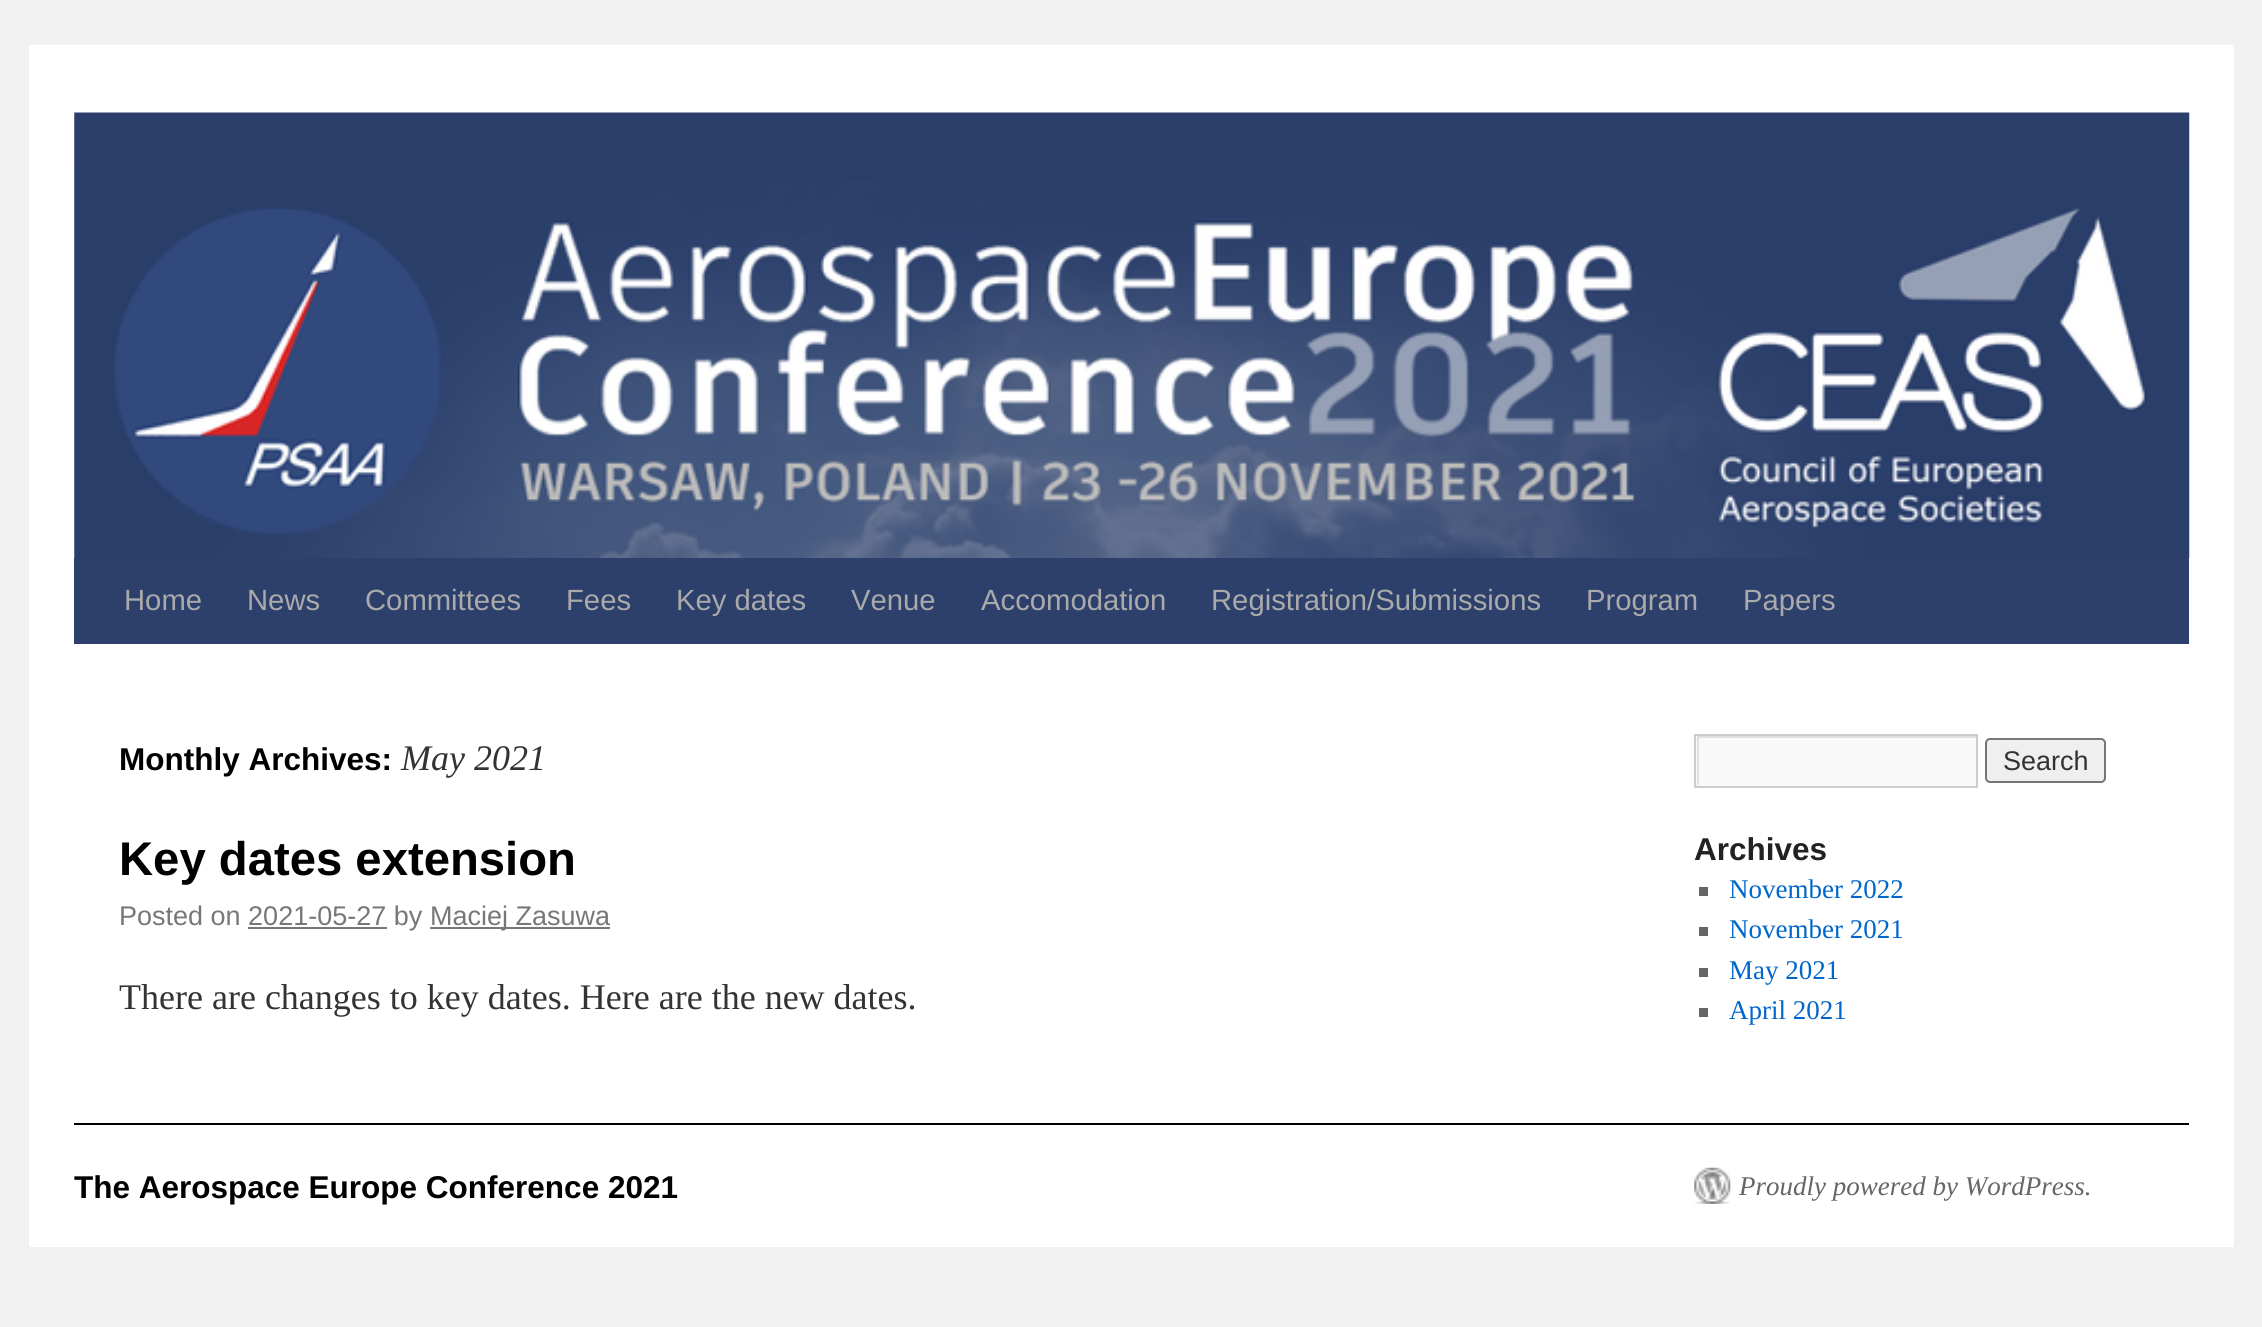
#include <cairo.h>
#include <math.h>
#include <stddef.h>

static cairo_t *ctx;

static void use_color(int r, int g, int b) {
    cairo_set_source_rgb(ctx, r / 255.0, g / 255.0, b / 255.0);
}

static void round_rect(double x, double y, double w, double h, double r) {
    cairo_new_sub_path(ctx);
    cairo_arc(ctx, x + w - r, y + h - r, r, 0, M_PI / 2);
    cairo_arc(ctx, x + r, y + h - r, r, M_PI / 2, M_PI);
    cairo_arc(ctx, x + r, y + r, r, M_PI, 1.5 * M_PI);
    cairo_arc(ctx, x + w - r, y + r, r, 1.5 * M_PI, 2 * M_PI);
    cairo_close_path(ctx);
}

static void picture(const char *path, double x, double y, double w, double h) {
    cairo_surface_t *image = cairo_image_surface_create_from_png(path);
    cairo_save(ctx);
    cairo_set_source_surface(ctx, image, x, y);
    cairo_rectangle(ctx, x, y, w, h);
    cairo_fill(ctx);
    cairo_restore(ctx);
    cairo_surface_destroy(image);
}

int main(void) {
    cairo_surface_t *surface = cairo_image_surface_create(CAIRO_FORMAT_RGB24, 2262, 1327);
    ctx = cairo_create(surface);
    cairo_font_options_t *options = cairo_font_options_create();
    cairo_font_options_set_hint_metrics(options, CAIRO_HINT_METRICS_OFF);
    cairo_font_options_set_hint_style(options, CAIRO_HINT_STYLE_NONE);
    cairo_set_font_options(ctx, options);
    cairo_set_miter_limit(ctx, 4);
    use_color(241, 241, 241);
    cairo_paint(ctx);
    use_color(255, 255, 255);
    cairo_rectangle(ctx, 29, 45, 2205, 1202);
    cairo_fill(ctx);
    picture("img1.png", 74, 112, 2116, 446);
    use_color(44, 64, 107);
    cairo_rectangle(ctx, 74, 558, 2115, 86);
    cairo_fill(ctx);
    cairo_select_font_face(ctx, "Liberation Sans", CAIRO_FONT_SLANT_NORMAL, CAIRO_FONT_WEIGHT_NORMAL);
    cairo_set_font_size(ctx, 29.25);
    use_color(170, 170, 170);
    cairo_move_to(ctx, 124, 610);
    cairo_show_text(ctx, "Home");
    cairo_move_to(ctx, 247, 610);
    cairo_show_text(ctx, "News");
    cairo_move_to(ctx, 365, 610);
    cairo_show_text(ctx, "Committees");
    cairo_move_to(ctx, 566, 610);
    cairo_show_text(ctx, "Fees");
    cairo_move_to(ctx, 676, 610);
    cairo_show_text(ctx, "Key dates");
    cairo_move_to(ctx, 851, 610);
    cairo_show_text(ctx, "Venue");
    cairo_move_to(ctx, 981, 610);
    cairo_show_text(ctx, "Accomodation");
    cairo_move_to(ctx, 1211, 610);
    cairo_show_text(ctx, "Registration/Submissions");
    cairo_move_to(ctx, 1586, 610);
    cairo_show_text(ctx, "Program");
    cairo_move_to(ctx, 1743, 610);
    cairo_show_text(ctx, "Papers");
    cairo_select_font_face(ctx, "Liberation Sans", CAIRO_FONT_SLANT_NORMAL, CAIRO_FONT_WEIGHT_BOLD);
    cairo_set_font_size(ctx, 31.5);
    use_color(0, 0, 0);
    cairo_move_to(ctx, 119, 770);
    cairo_show_text(ctx, "Monthly Archives:");
    cairo_select_font_face(ctx, "Liberation Serif", CAIRO_FONT_SLANT_ITALIC, CAIRO_FONT_WEIGHT_NORMAL);
    cairo_set_font_size(ctx, 36);
    use_color(51, 51, 51);
    cairo_move_to(ctx, 401, 770);
    cairo_show_text(ctx, "May 2021");
    cairo_select_font_face(ctx, "Liberation Sans", CAIRO_FONT_SLANT_NORMAL, CAIRO_FONT_WEIGHT_BOLD);
    cairo_set_font_size(ctx, 47.25);
    use_color(0, 0, 0);
    cairo_move_to(ctx, 119, 875);
    cairo_show_text(ctx, "Key dates extension");
    cairo_select_font_face(ctx, "Liberation Sans", CAIRO_FONT_SLANT_NORMAL, CAIRO_FONT_WEIGHT_NORMAL);
    cairo_set_font_size(ctx, 27);
    use_color(119, 119, 119);
    cairo_move_to(ctx, 119, 925);
    cairo_show_text(ctx, "Posted on 2021-05-27 by");
    cairo_rectangle(ctx, 430, 927, 180, 2);
    cairo_fill(ctx);
    cairo_move_to(ctx, 430, 925);
    cairo_show_text(ctx, "Maciej Zasuwa");
    cairo_rectangle(ctx, 248, 927, 139, 2);
    cairo_fill(ctx);
    cairo_select_font_face(ctx, "Liberation Serif", CAIRO_FONT_SLANT_NORMAL, CAIRO_FONT_WEIGHT_NORMAL);
    cairo_set_font_size(ctx, 36);
    use_color(51, 51, 51);
    cairo_move_to(ctx, 119, 1009);
    cairo_show_text(ctx, "There are changes to key dates. Here are the new dates.");
    use_color(249, 249, 249);
    cairo_rectangle(ctx, 1696, 736, 280, 50);
    cairo_fill(ctx);
    cairo_save(ctx);
    cairo_rectangle(ctx, 1697, 736, 279, 49);
    cairo_clip(ctx);
    use_color(224, 224, 224);
    cairo_set_fill_rule(ctx, CAIRO_FILL_RULE_EVEN_ODD);
    cairo_new_path(ctx);
    cairo_move_to(ctx, 1474, 513);
    cairo_line_to(ctx, 2198, 513);
    cairo_line_to(ctx, 2198, 1008);
    cairo_line_to(ctx, 1474, 1008);
    cairo_close_path(ctx);
    cairo_move_to(ctx, 1699, 738);
    cairo_line_to(ctx, 1978, 738);
    cairo_line_to(ctx, 1978, 788);
    cairo_line_to(ctx, 1699, 788);
    cairo_close_path(ctx);
    cairo_fill(ctx);
    cairo_restore(ctx);
    cairo_rectangle(ctx, 1695, 735, 282, 52);
    use_color(204, 204, 204);
    cairo_stroke(ctx);
    use_color(239, 239, 239);
    round_rect(1986, 739, 119, 43, 4);
    cairo_fill_preserve(ctx);
    use_color(118, 118, 118);
    cairo_stroke(ctx);
    cairo_select_font_face(ctx, "Liberation Sans", CAIRO_FONT_SLANT_NORMAL, CAIRO_FONT_WEIGHT_NORMAL);
    cairo_set_font_size(ctx, 27);
    use_color(51, 51, 51);
    cairo_move_to(ctx, 2003, 770);
    cairo_show_text(ctx, "Search");
    cairo_select_font_face(ctx, "Liberation Sans", CAIRO_FONT_SLANT_NORMAL, CAIRO_FONT_WEIGHT_BOLD);
    cairo_set_font_size(ctx, 31.5);
    use_color(34, 34, 34);
    cairo_move_to(ctx, 1694, 860);
    cairo_show_text(ctx, "Archives");
    use_color(102, 102, 102);
    cairo_rectangle(ctx, 1699, 887, 9, 9);
    cairo_fill(ctx);
    cairo_select_font_face(ctx, "Liberation Serif", CAIRO_FONT_SLANT_NORMAL, CAIRO_FONT_WEIGHT_NORMAL);
    cairo_set_font_size(ctx, 27);
    use_color(0, 102, 204);
    cairo_move_to(ctx, 1729, 898);
    cairo_show_text(ctx, "November 2022");
    use_color(102, 102, 102);
    cairo_rectangle(ctx, 1699, 927, 9, 9);
    cairo_fill(ctx);
    use_color(0, 102, 204);
    cairo_move_to(ctx, 1729, 938);
    cairo_show_text(ctx, "November 2021");
    use_color(102, 102, 102);
    cairo_rectangle(ctx, 1699, 968, 9, 9);
    cairo_fill(ctx);
    use_color(0, 102, 204);
    cairo_move_to(ctx, 1729, 979);
    cairo_show_text(ctx, "May 2021");
    use_color(102, 102, 102);
    cairo_rectangle(ctx, 1699, 1008, 9, 9);
    cairo_fill(ctx);
    use_color(0, 102, 204);
    cairo_move_to(ctx, 1729, 1019);
    cairo_show_text(ctx, "April 2021");
    use_color(0, 0, 0);
    cairo_rectangle(ctx, 74, 1123, 2115, 2);
    cairo_fill(ctx);
    cairo_select_font_face(ctx, "Liberation Sans", CAIRO_FONT_SLANT_NORMAL, CAIRO_FONT_WEIGHT_BOLD);
    cairo_set_font_size(ctx, 31.5);
    cairo_move_to(ctx, 74, 1198);
    cairo_show_text(ctx, "The Aerospace Europe Conference 2021");
    picture("img2.png", 1694, 1167, 37, 37);
    cairo_select_font_face(ctx, "Liberation Serif", CAIRO_FONT_SLANT_ITALIC, CAIRO_FONT_WEIGHT_NORMAL);
    cairo_set_font_size(ctx, 27);
    use_color(102, 102, 102);
    cairo_move_to(ctx, 1739, 1195);
    cairo_show_text(ctx, "Proudly powered by WordPress.");
    cairo_surface_write_to_png(surface, "result.png");
    cairo_font_options_destroy(options);
    cairo_destroy(ctx);
    cairo_surface_destroy(surface);
    return 0;
}
